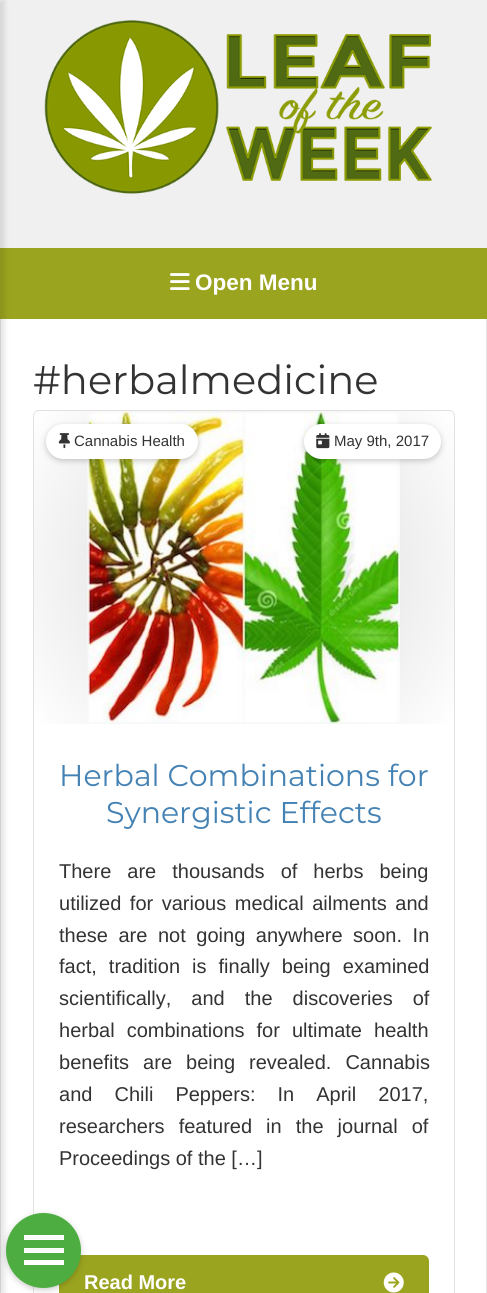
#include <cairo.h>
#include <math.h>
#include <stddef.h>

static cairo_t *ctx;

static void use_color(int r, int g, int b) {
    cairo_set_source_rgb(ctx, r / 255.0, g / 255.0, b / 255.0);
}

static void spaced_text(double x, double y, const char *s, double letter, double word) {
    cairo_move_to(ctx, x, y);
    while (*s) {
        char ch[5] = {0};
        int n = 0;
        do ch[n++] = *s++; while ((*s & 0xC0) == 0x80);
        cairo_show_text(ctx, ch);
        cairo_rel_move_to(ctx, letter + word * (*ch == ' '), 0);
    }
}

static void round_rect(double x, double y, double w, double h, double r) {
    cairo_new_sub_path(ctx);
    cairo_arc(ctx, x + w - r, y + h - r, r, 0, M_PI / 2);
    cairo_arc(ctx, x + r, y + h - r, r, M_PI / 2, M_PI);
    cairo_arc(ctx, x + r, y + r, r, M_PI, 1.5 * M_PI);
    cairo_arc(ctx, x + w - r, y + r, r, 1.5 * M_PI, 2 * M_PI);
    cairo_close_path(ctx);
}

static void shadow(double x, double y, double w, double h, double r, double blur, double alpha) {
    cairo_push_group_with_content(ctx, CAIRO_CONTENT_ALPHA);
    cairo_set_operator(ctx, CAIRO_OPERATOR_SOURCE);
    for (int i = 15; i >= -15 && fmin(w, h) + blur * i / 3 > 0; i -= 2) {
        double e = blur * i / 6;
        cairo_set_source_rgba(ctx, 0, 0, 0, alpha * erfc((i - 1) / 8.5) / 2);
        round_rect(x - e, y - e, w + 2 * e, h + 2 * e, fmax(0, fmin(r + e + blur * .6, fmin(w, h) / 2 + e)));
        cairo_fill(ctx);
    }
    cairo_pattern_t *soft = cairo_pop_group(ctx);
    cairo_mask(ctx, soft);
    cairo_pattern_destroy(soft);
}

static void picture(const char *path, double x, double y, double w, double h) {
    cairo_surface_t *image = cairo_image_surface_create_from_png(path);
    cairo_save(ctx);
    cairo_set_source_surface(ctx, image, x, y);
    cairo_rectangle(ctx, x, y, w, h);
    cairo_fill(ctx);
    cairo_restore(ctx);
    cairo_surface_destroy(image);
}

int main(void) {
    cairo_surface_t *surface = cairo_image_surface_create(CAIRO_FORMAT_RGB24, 487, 1293);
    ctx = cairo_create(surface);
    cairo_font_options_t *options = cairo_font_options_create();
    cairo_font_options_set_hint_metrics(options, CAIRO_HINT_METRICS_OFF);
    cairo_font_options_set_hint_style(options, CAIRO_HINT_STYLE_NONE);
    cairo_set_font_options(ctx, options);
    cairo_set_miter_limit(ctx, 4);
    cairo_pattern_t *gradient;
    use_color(240, 240, 240);
    cairo_paint(ctx);
    use_color(155, 164, 31);
    cairo_rectangle(ctx, 0, 248, 487, 71);
    cairo_fill(ctx);
    use_color(255, 255, 255);
    cairo_rectangle(ctx, 1, 319, 485, 974);
    cairo_fill(ctx);
    use_color(230, 230, 230);
    cairo_rectangle(ctx, 0, 319, 1, 974);
    cairo_fill(ctx);
    use_color(0, 0, 0);
    shadow(-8, 0, 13, 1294, 0, 2.5, 0.1);
    picture("img1.png", 44, 20, 388, 174);
    picture("img2.png", 170, 273, 20, 17);
    cairo_select_font_face(ctx, "Liberation Sans", CAIRO_FONT_SLANT_NORMAL, CAIRO_FONT_WEIGHT_BOLD);
    cairo_set_font_size(ctx, 22.5);
    use_color(255, 255, 255);
    cairo_move_to(ctx, 195, 290);
    cairo_show_text(ctx, "Open Menu");
    use_color(230, 230, 230);
    cairo_rectangle(ctx, 486, 319, 1, 974);
    cairo_fill(ctx);
    cairo_select_font_face(ctx, "Montserrat", CAIRO_FONT_SLANT_NORMAL, CAIRO_FONT_WEIGHT_NORMAL);
    cairo_set_font_size(ctx, 40);
    use_color(51, 51, 51);
    cairo_move_to(ctx, 33, 394);
    cairo_show_text(ctx, "#herbalmedicine");
    round_rect(33.5, 410.5, 421, 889, 5.5);
    use_color(225, 225, 225);
    cairo_set_line_width(ctx, 1);
    cairo_stroke(ctx);
    gradient = cairo_pattern_create_radial(244, 568, 0, 244, 568, 262);
    cairo_pattern_add_color_stop_rgba(gradient, 0, 0.827, 0.827, 0.827, 1);
    cairo_pattern_add_color_stop_rgba(gradient, 1, 0.827, 0.827, 0.827, 0);
    cairo_set_source(ctx, gradient);
    cairo_pattern_destroy(gradient);
    cairo_rectangle(ctx, 34, 411, 420, 313);
    cairo_fill(ctx);
    picture("img3.png", 87, 411, 313, 313);
    use_color(0, 0, 0);
    shadow(46, 426, 152, 35, 17.5, 3, 0.2);
    use_color(255, 255, 255);
    round_rect(46, 424, 152, 35, 17.5);
    cairo_fill(ctx);
    picture("img4.png", 58, 433, 12, 16);
    cairo_select_font_face(ctx, "Liberation Sans", CAIRO_FONT_SLANT_NORMAL, CAIRO_FONT_WEIGHT_NORMAL);
    cairo_set_font_size(ctx, 15);
    use_color(51, 51, 51);
    cairo_move_to(ctx, 74, 446);
    cairo_show_text(ctx, "Cannabis Health");
    use_color(0, 0, 0);
    shadow(304, 426, 137, 35, 17.5, 3, 0.2);
    use_color(255, 255, 255);
    round_rect(304, 424, 137, 35, 17.5);
    cairo_fill(ctx);
    picture("img5.png", 316, 433, 14, 16);
    use_color(51, 51, 51);
    cairo_move_to(ctx, 334, 446);
    cairo_show_text(ctx, "May 9th, 2017");
    cairo_select_font_face(ctx, "Montserrat", CAIRO_FONT_SLANT_NORMAL, CAIRO_FONT_WEIGHT_NORMAL);
    cairo_set_font_size(ctx, 30);
    use_color(69, 130, 180);
    cairo_move_to(ctx, 59, 786);
    cairo_show_text(ctx, "Herbal Combinations for");
    cairo_move_to(ctx, 106, 823);
    cairo_show_text(ctx, "Synergistic Effects");
    cairo_select_font_face(ctx, "Liberation Sans", CAIRO_FONT_SLANT_NORMAL, CAIRO_FONT_WEIGHT_NORMAL);
    cairo_set_font_size(ctx, 20);
    use_color(51, 51, 51);
    spaced_text(59, 878, "There are thousands of herbs being", 0, 10.5);
    spaced_text(59, 910, "utilized for various medical ailments and", 0, 3);
    spaced_text(59, 942, "these are not going anywhere soon. In", 0, 5);
    spaced_text(59, 973, "fact, tradition is finally being examined", 0, 6.5);
    spaced_text(59, 1005, "scientifically, and the discoveries of", 0, 14.5);
    spaced_text(59, 1037, "herbal combinations for ultimate health", 0, 6.5);
    spaced_text(59, 1069, "benefits are being revealed. Cannabis", 0, 8.5);
    spaced_text(59, 1101, "and Chili Peppers: In April 2017,", 0, 16.5);
    spaced_text(59, 1133, "researchers featured in the journal of", 0, 8.5);
    cairo_move_to(ctx, 59, 1165);
    cairo_show_text(ctx, "Proceedings of the […]");
    use_color(155, 164, 31);
    round_rect(59, 1255, 370, 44, 6);
    cairo_fill(ctx);
    cairo_select_font_face(ctx, "Liberation Sans", CAIRO_FONT_SLANT_NORMAL, CAIRO_FONT_WEIGHT_BOLD);
    use_color(255, 255, 255);
    cairo_move_to(ctx, 84, 1289);
    cairo_show_text(ctx, "Read More");
    picture("img6.png", 383, 1272, 21, 21);
    use_color(0, 0, 0);
    shadow(6, 1215, 75, 75, 37.5, 3, 0.2);
    use_color(77, 173, 65);
    cairo_arc(ctx, 43.5, 1250.5, 37.5, 0, 2 * M_PI);
    cairo_fill(ctx);
    use_color(255, 255, 255);
    cairo_rectangle(ctx, 24, 1235, 40, 5);
    cairo_fill(ctx);
    cairo_rectangle(ctx, 24, 1248, 40, 5);
    cairo_fill(ctx);
    cairo_rectangle(ctx, 24, 1260, 40, 5);
    cairo_fill(ctx);
    cairo_surface_write_to_png(surface, "result.png");
    cairo_font_options_destroy(options);
    cairo_destroy(ctx);
    cairo_surface_destroy(surface);
    return 0;
}
